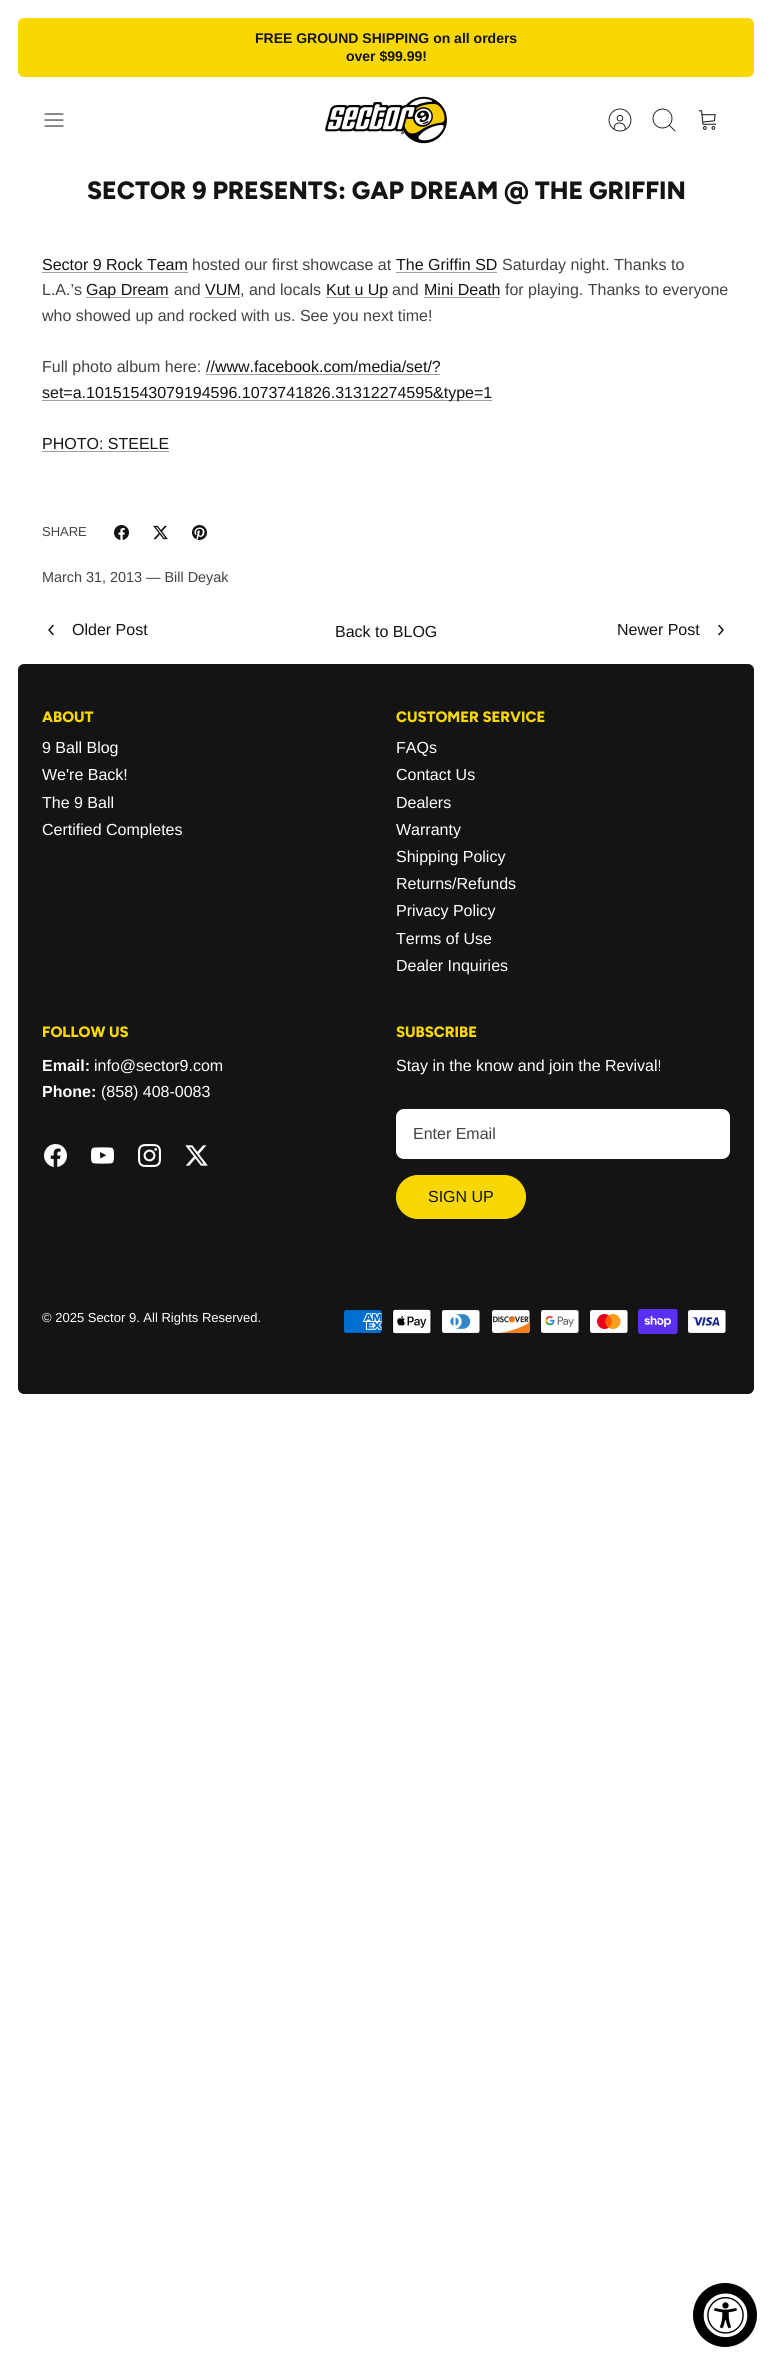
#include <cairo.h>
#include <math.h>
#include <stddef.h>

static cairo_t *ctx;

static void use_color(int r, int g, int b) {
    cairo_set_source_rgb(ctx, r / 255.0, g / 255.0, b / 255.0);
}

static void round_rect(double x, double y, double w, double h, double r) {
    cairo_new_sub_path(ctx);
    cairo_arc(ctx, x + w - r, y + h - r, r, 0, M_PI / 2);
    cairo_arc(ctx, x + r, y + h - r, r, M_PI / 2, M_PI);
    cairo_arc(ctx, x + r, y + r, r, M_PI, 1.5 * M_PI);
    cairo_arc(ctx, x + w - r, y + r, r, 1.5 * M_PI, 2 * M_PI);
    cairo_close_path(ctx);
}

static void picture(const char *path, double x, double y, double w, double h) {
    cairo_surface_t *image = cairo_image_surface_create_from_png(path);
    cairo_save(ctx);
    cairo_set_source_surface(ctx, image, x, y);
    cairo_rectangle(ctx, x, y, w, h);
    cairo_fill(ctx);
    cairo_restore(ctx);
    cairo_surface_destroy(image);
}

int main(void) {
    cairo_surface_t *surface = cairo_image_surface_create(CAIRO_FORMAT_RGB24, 772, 2362);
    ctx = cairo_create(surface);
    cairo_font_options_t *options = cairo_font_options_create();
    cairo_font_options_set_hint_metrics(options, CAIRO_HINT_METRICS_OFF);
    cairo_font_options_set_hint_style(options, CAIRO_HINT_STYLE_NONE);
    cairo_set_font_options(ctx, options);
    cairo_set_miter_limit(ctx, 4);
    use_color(255, 255, 255);
    cairo_paint(ctx);
    use_color(249, 215, 3);
    round_rect(18, 18, 736, 59, 6);
    cairo_fill(ctx);
    cairo_select_font_face(ctx, "Arimo", CAIRO_FONT_SLANT_NORMAL, CAIRO_FONT_WEIGHT_BOLD);
    cairo_set_font_size(ctx, 14);
    use_color(20, 20, 20);
    cairo_move_to(ctx, 255, 43);
    cairo_show_text(ctx, "FREE GROUND SHIPPING on all orders");
    cairo_move_to(ctx, 346, 61);
    cairo_show_text(ctx, "over $99.99!");
    picture("img1.png", 44, 113, 20, 14);
    picture("img2.png", 325, 96, 122, 48);
    cairo_new_path(ctx);
    cairo_move_to(ctx, 625, 130);
    cairo_curve_to(ctx, 627.5, 121, 612, 120.5, 614.5, 129.5);
    cairo_set_line_width(ctx, 0.9);
    cairo_stroke(ctx);
    cairo_arc(ctx, 619.9, 118.2, 2.8, 0, 2 * M_PI);
    cairo_stroke(ctx);
    cairo_arc(ctx, 620, 120, 11, 0, 2 * M_PI);
    cairo_stroke(ctx);
    cairo_arc(ctx, 662.5, 118.5, 9.5, 0, 2 * M_PI);
    cairo_stroke(ctx);
    cairo_new_path(ctx);
    cairo_move_to(ctx, 669.5, 125.5);
    cairo_line_to(ctx, 675, 131);
    cairo_set_line_cap(ctx, CAIRO_LINE_CAP_SQUARE);
    cairo_stroke(ctx);
    picture("img3.png", 699, 110, 17, 20);
    cairo_select_font_face(ctx, "Figtree ExtraBold", CAIRO_FONT_SLANT_NORMAL, CAIRO_FONT_WEIGHT_NORMAL);
    cairo_set_font_size(ctx, 25);
    cairo_move_to(ctx, 87, 199);
    cairo_show_text(ctx, "SECTOR 9 PRESENTS: GAP DREAM @ THE GRIFFIN");
    cairo_select_font_face(ctx, "Arimo", CAIRO_FONT_SLANT_NORMAL, CAIRO_FONT_WEIGHT_NORMAL);
    cairo_set_font_size(ctx, 16);
    cairo_move_to(ctx, 42, 270);
    cairo_show_text(ctx, "Sector 9 Rock Team");
    use_color(160, 160, 160);
    cairo_rectangle(ctx, 42, 272, 146, 1);
    cairo_fill(ctx);
    use_color(67, 67, 67);
    cairo_move_to(ctx, 192, 270);
    cairo_show_text(ctx, "hosted our first showcase at");
    use_color(20, 20, 20);
    cairo_move_to(ctx, 396, 270);
    cairo_show_text(ctx, "The Griffin SD");
    use_color(160, 160, 160);
    cairo_rectangle(ctx, 396, 272, 101, 1);
    cairo_fill(ctx);
    use_color(67, 67, 67);
    cairo_move_to(ctx, 502, 270);
    cairo_show_text(ctx, "Saturday night. Thanks to");
    cairo_move_to(ctx, 42, 295);
    cairo_show_text(ctx, "L.A.’s");
    use_color(160, 160, 160);
    cairo_rectangle(ctx, 86, 297, 83, 1);
    cairo_fill(ctx);
    use_color(20, 20, 20);
    cairo_move_to(ctx, 86, 295);
    cairo_show_text(ctx, "Gap Dream");
    use_color(67, 67, 67);
    cairo_move_to(ctx, 174, 295);
    cairo_show_text(ctx, "and");
    use_color(20, 20, 20);
    cairo_move_to(ctx, 205, 295);
    cairo_show_text(ctx, "VUM");
    use_color(160, 160, 160);
    cairo_rectangle(ctx, 205, 297, 35, 1);
    cairo_fill(ctx);
    use_color(67, 67, 67);
    cairo_move_to(ctx, 240, 295);
    cairo_show_text(ctx, ", and locals");
    use_color(160, 160, 160);
    cairo_rectangle(ctx, 326, 297, 62, 1);
    cairo_fill(ctx);
    use_color(20, 20, 20);
    cairo_move_to(ctx, 326, 295);
    cairo_show_text(ctx, "Kut u Up");
    use_color(67, 67, 67);
    cairo_move_to(ctx, 392, 295);
    cairo_show_text(ctx, "and");
    use_color(20, 20, 20);
    cairo_move_to(ctx, 424, 295);
    cairo_show_text(ctx, "Mini Death");
    use_color(160, 160, 160);
    cairo_rectangle(ctx, 424, 297, 76, 1);
    cairo_fill(ctx);
    use_color(67, 67, 67);
    cairo_move_to(ctx, 505, 295);
    cairo_show_text(ctx, "for playing. Thanks to everyone");
    cairo_move_to(ctx, 42, 321);
    cairo_show_text(ctx, "who showed up and rocked with us. See you next time!");
    cairo_move_to(ctx, 42, 372);
    cairo_show_text(ctx, "Full photo album here:");
    use_color(20, 20, 20);
    cairo_move_to(ctx, 206, 372);
    cairo_show_text(ctx, "//www.facebook.com/media/set/?");
    use_color(160, 160, 160);
    cairo_rectangle(ctx, 206, 374, 234, 1);
    cairo_fill(ctx);
    cairo_rectangle(ctx, 42, 400, 450, 1);
    cairo_fill(ctx);
    use_color(20, 20, 20);
    cairo_move_to(ctx, 42, 398);
    cairo_show_text(ctx, "set=a.10151543079194596.1073741826.31312274595&type=1");
    cairo_move_to(ctx, 42, 449);
    cairo_show_text(ctx, "PHOTO: STEELE");
    use_color(160, 160, 160);
    cairo_rectangle(ctx, 42, 451, 127, 1);
    cairo_fill(ctx);
    cairo_set_font_size(ctx, 13);
    use_color(67, 67, 67);
    cairo_move_to(ctx, 42, 536);
    cairo_show_text(ctx, "SHARE");
    picture("img4.png", 114, 525, 15, 15);
    picture("img5.png", 153, 525, 15, 15);
    picture("img6.png", 192, 525, 15, 15);
    cairo_set_font_size(ctx, 14.4);
    cairo_move_to(ctx, 42, 582);
    cairo_show_text(ctx, "March 31, 2013 — Bill Deyak");
    cairo_new_path(ctx);
    cairo_move_to(ctx, 53, 634.5);
    cairo_line_to(ctx, 49, 630);
    cairo_line_to(ctx, 53, 625.5);
    use_color(18, 18, 18);
    cairo_set_line_width(ctx, 1.5);
    cairo_set_line_cap(ctx, CAIRO_LINE_CAP_ROUND);
    cairo_set_line_join(ctx, CAIRO_LINE_JOIN_ROUND);
    cairo_stroke(ctx);
    cairo_set_font_size(ctx, 16);
    use_color(20, 20, 20);
    cairo_move_to(ctx, 72, 635);
    cairo_show_text(ctx, "Older Post");
    cairo_move_to(ctx, 335, 637);
    cairo_show_text(ctx, "Back to BLOG");
    cairo_move_to(ctx, 617, 635);
    cairo_show_text(ctx, "Newer Post");
    cairo_new_path(ctx);
    cairo_move_to(ctx, 719, 634.5);
    cairo_line_to(ctx, 723, 630);
    cairo_line_to(ctx, 719, 625.5);
    use_color(18, 18, 18);
    cairo_stroke(ctx);
    use_color(20, 20, 20);
    round_rect(18, 664, 736, 730, 6);
    cairo_fill(ctx);
    cairo_select_font_face(ctx, "Figtree ExtraBold", CAIRO_FONT_SLANT_NORMAL, CAIRO_FONT_WEIGHT_NORMAL);
    cairo_set_font_size(ctx, 15);
    use_color(249, 215, 3);
    cairo_move_to(ctx, 42, 722);
    cairo_show_text(ctx, "ABOUT");
    cairo_select_font_face(ctx, "Arimo", CAIRO_FONT_SLANT_NORMAL, CAIRO_FONT_WEIGHT_NORMAL);
    cairo_set_font_size(ctx, 16);
    use_color(255, 255, 255);
    cairo_move_to(ctx, 42, 753);
    cairo_show_text(ctx, "9 Ball Blog");
    cairo_move_to(ctx, 42, 780);
    cairo_show_text(ctx, "We're Back!");
    cairo_move_to(ctx, 42, 808);
    cairo_show_text(ctx, "The 9 Ball");
    cairo_move_to(ctx, 42, 835);
    cairo_show_text(ctx, "Certified Completes");
    cairo_select_font_face(ctx, "Figtree ExtraBold", CAIRO_FONT_SLANT_NORMAL, CAIRO_FONT_WEIGHT_NORMAL);
    cairo_set_font_size(ctx, 15);
    use_color(249, 215, 3);
    cairo_move_to(ctx, 396, 722);
    cairo_show_text(ctx, "CUSTOMER SERVICE");
    cairo_select_font_face(ctx, "Arimo", CAIRO_FONT_SLANT_NORMAL, CAIRO_FONT_WEIGHT_NORMAL);
    cairo_set_font_size(ctx, 16);
    use_color(255, 255, 255);
    cairo_move_to(ctx, 396, 753);
    cairo_show_text(ctx, "FAQs");
    cairo_move_to(ctx, 396, 780);
    cairo_show_text(ctx, "Contact Us");
    cairo_move_to(ctx, 396, 808);
    cairo_show_text(ctx, "Dealers");
    cairo_move_to(ctx, 396, 835);
    cairo_show_text(ctx, "Warranty");
    cairo_move_to(ctx, 396, 862);
    cairo_show_text(ctx, "Shipping Policy");
    cairo_move_to(ctx, 396, 889);
    cairo_show_text(ctx, "Returns/Refunds");
    cairo_move_to(ctx, 396, 916);
    cairo_show_text(ctx, "Privacy Policy");
    cairo_move_to(ctx, 396, 944);
    cairo_show_text(ctx, "Terms of Use");
    cairo_move_to(ctx, 396, 971);
    cairo_show_text(ctx, "Dealer Inquiries");
    cairo_select_font_face(ctx, "Figtree ExtraBold", CAIRO_FONT_SLANT_NORMAL, CAIRO_FONT_WEIGHT_NORMAL);
    cairo_set_font_size(ctx, 15);
    use_color(249, 215, 3);
    cairo_move_to(ctx, 42, 1037);
    cairo_show_text(ctx, "FOLLOW US");
    cairo_select_font_face(ctx, "Arimo", CAIRO_FONT_SLANT_NORMAL, CAIRO_FONT_WEIGHT_BOLD);
    cairo_set_font_size(ctx, 16);
    use_color(255, 255, 255);
    cairo_move_to(ctx, 42, 1071);
    cairo_show_text(ctx, "Email:");
    cairo_select_font_face(ctx, "Arimo", CAIRO_FONT_SLANT_NORMAL, CAIRO_FONT_WEIGHT_NORMAL);
    cairo_move_to(ctx, 94, 1071);
    cairo_show_text(ctx, "info@sector9.com");
    cairo_select_font_face(ctx, "Arimo", CAIRO_FONT_SLANT_NORMAL, CAIRO_FONT_WEIGHT_BOLD);
    cairo_move_to(ctx, 42, 1097);
    cairo_show_text(ctx, "Phone:");
    cairo_select_font_face(ctx, "Arimo", CAIRO_FONT_SLANT_NORMAL, CAIRO_FONT_WEIGHT_NORMAL);
    cairo_move_to(ctx, 101, 1097);
    cairo_show_text(ctx, "(858) 408-0083");
    picture("img7.png", 44, 1144, 23, 23);
    picture("img8.png", 91, 1147, 23, 17);
    picture("img9.png", 138, 1144, 23, 23);
    picture("img10.png", 185, 1145, 23, 21);
    cairo_select_font_face(ctx, "Figtree ExtraBold", CAIRO_FONT_SLANT_NORMAL, CAIRO_FONT_WEIGHT_NORMAL);
    cairo_set_font_size(ctx, 15);
    use_color(249, 215, 3);
    cairo_move_to(ctx, 396, 1037);
    cairo_show_text(ctx, "SUBSCRIBE");
    cairo_select_font_face(ctx, "Arimo", CAIRO_FONT_SLANT_NORMAL, CAIRO_FONT_WEIGHT_NORMAL);
    cairo_set_font_size(ctx, 16);
    use_color(255, 255, 255);
    cairo_move_to(ctx, 396, 1071);
    cairo_show_text(ctx, "Stay in the know and join the Revival!");
    round_rect(397, 1110, 332, 48, 7);
    cairo_fill_preserve(ctx);
    cairo_set_line_width(ctx, 2);
    cairo_set_line_cap(ctx, CAIRO_LINE_CAP_BUTT);
    cairo_set_line_join(ctx, CAIRO_LINE_JOIN_MITER);
    cairo_stroke(ctx);
    use_color(67, 67, 67);
    cairo_move_to(ctx, 413, 1139);
    cairo_show_text(ctx, "Enter Email");
    use_color(249, 215, 3);
    round_rect(396.5, 1175.5, 129, 43, 21.5);
    cairo_fill_preserve(ctx);
    cairo_set_line_width(ctx, 1);
    cairo_stroke(ctx);
    use_color(20, 20, 20);
    cairo_move_to(ctx, 428, 1202);
    cairo_show_text(ctx, "SIGN UP");
    cairo_set_font_size(ctx, 13);
    use_color(255, 255, 255);
    cairo_move_to(ctx, 42, 1322);
    cairo_show_text(ctx, "© 2025 Sector 9. All Rights Reserved.");
    picture("img11.png", 344, 1310, 38, 23);
    picture("img12.png", 392, 1309, 40, 25);
    picture("img13.png", 442, 1310, 38, 23);
    picture("img14.png", 492, 1310, 38, 23);
    picture("img15.png", 541, 1310, 38, 23);
    picture("img16.png", 590, 1310, 38, 23);
    picture("img17.png", 638, 1309, 40, 25);
    picture("img18.png", 688, 1310, 38, 23);
    use_color(0, 0, 0);
    cairo_arc(ctx, 725, 2315, 32, 0, 2 * M_PI);
    cairo_fill(ctx);
    picture("img19.png", 703, 2293, 45, 45);
    cairo_surface_write_to_png(surface, "result.png");
    cairo_font_options_destroy(options);
    cairo_destroy(ctx);
    cairo_surface_destroy(surface);
    return 0;
}
